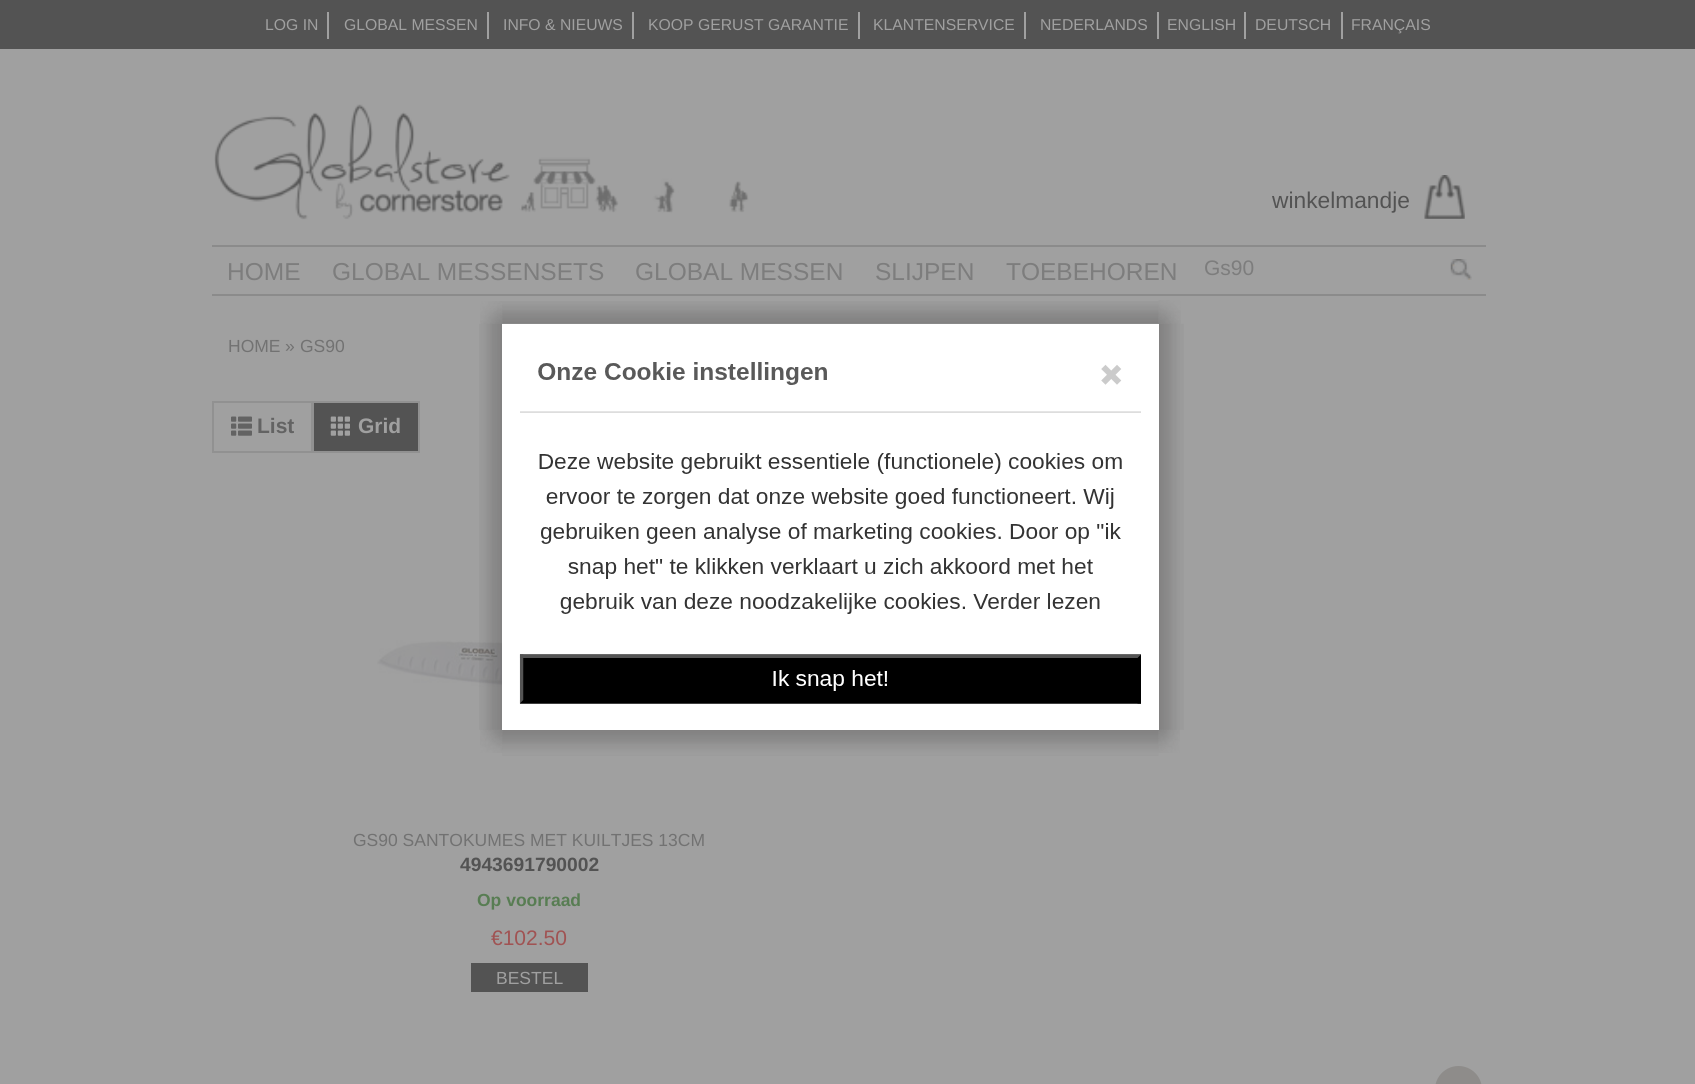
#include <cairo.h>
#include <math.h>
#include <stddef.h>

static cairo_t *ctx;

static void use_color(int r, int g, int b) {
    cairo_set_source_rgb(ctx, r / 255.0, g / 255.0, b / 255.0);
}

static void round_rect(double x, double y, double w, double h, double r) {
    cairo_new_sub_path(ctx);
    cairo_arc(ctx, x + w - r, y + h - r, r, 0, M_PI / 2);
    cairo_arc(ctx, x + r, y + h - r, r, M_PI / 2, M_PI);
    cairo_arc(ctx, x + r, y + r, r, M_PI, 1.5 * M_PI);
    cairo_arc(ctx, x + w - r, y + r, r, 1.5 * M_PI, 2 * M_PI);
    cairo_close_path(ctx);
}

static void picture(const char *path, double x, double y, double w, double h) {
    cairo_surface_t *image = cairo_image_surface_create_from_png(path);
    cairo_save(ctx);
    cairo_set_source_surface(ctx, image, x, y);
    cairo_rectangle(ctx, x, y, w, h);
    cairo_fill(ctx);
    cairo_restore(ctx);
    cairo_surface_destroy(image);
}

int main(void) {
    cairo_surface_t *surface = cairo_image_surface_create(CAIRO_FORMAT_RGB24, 1695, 1084);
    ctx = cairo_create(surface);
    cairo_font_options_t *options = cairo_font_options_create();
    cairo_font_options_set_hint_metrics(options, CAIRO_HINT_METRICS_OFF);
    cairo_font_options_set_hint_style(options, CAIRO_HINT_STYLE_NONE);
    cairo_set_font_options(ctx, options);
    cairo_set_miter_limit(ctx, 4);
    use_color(160, 160, 160);
    cairo_paint(ctx);
    use_color(83, 83, 83);
    cairo_rectangle(ctx, 0, 0, 1695, 49);
    cairo_fill(ctx);
    use_color(160, 160, 160);
    cairo_rectangle(ctx, 327, 12, 2, 27);
    cairo_fill(ctx);
    cairo_select_font_face(ctx, "Liberation Sans", CAIRO_FONT_SLANT_NORMAL, CAIRO_FONT_WEIGHT_NORMAL);
    cairo_set_font_size(ctx, 15.75);
    cairo_move_to(ctx, 265, 30);
    cairo_show_text(ctx, "LOG IN");
    cairo_rectangle(ctx, 487, 12, 2, 27);
    cairo_fill(ctx);
    cairo_move_to(ctx, 344, 30);
    cairo_show_text(ctx, "GLOBAL MESSEN");
    cairo_rectangle(ctx, 632, 12, 2, 27);
    cairo_fill(ctx);
    cairo_move_to(ctx, 503, 30);
    cairo_show_text(ctx, "INFO & NIEUWS");
    cairo_rectangle(ctx, 858, 12, 2, 27);
    cairo_fill(ctx);
    cairo_move_to(ctx, 648, 30);
    cairo_show_text(ctx, "KOOP GERUST GARANTIE");
    cairo_rectangle(ctx, 1024, 12, 2, 27);
    cairo_fill(ctx);
    cairo_move_to(ctx, 873, 30);
    cairo_show_text(ctx, "KLANTENSERVICE");
    cairo_rectangle(ctx, 1157, 12, 2, 27);
    cairo_fill(ctx);
    cairo_move_to(ctx, 1040, 30);
    cairo_show_text(ctx, "NEDERLANDS");
    cairo_rectangle(ctx, 1244, 12, 2, 27);
    cairo_fill(ctx);
    cairo_move_to(ctx, 1167, 30);
    cairo_show_text(ctx, "ENGLISH");
    cairo_rectangle(ctx, 1341, 12, 2, 27);
    cairo_fill(ctx);
    cairo_move_to(ctx, 1255, 30);
    cairo_show_text(ctx, "DEUTSCH");
    cairo_move_to(ctx, 1351, 30);
    cairo_show_text(ctx, "FRANÇAIS");
    picture("img1.png", 214, 104, 535, 116);
    cairo_set_font_size(ctx, 22.75);
    use_color(83, 83, 83);
    cairo_move_to(ctx, 1272, 208);
    cairo_show_text(ctx, "winkelmandje");
    picture("img2.png", 1424, 175, 41, 44);
    use_color(139, 139, 139);
    cairo_rectangle(ctx, 212, 245, 1274, 2);
    cairo_fill(ctx);
    cairo_rectangle(ctx, 212, 294, 1274, 2);
    cairo_fill(ctx);
    cairo_set_font_size(ctx, 24.5);
    use_color(125, 125, 125);
    cairo_move_to(ctx, 227, 280);
    cairo_show_text(ctx, "HOME");
    cairo_move_to(ctx, 332, 280);
    cairo_show_text(ctx, "GLOBAL MESSENSETS");
    cairo_move_to(ctx, 635, 280);
    cairo_show_text(ctx, "GLOBAL MESSEN");
    cairo_move_to(ctx, 875, 280);
    cairo_show_text(ctx, "SLIJPEN");
    cairo_move_to(ctx, 1006, 280);
    cairo_show_text(ctx, "TOEBEHOREN");
    cairo_set_font_size(ctx, 21);
    cairo_move_to(ctx, 1204, 275);
    cairo_show_text(ctx, "Gs90");
    picture("img3.png", 1450, 259, 22, 21);
    cairo_set_font_size(ctx, 17.5);
    use_color(114, 114, 114);
    cairo_move_to(ctx, 228, 352);
    cairo_show_text(ctx, "HOME");
    cairo_move_to(ctx, 285, 352);
    cairo_show_text(ctx, "»");
    cairo_move_to(ctx, 300, 352);
    cairo_show_text(ctx, "GS90");
    cairo_rectangle(ctx, 213, 402, 99, 50);
    use_color(145, 145, 145);
    cairo_stroke(ctx);
    picture("img4.png", 231, 416, 21, 20);
    cairo_select_font_face(ctx, "Liberation Sans", CAIRO_FONT_SLANT_NORMAL, CAIRO_FONT_WEIGHT_BOLD);
    cairo_set_font_size(ctx, 21);
    use_color(99, 99, 99);
    cairo_move_to(ctx, 257, 433);
    cairo_show_text(ctx, "List");
    use_color(83, 83, 83);
    cairo_rectangle(ctx, 313, 402, 106, 50);
    cairo_fill_preserve(ctx);
    use_color(145, 145, 145);
    cairo_stroke(ctx);
    picture("img5.png", 330, 416, 20, 20);
    use_color(160, 160, 160);
    cairo_move_to(ctx, 358, 433);
    cairo_show_text(ctx, "Grid");
    picture("img6.png", 377, 640, 125, 47);
    cairo_select_font_face(ctx, "Liberation Sans", CAIRO_FONT_SLANT_NORMAL, CAIRO_FONT_WEIGHT_NORMAL);
    cairo_set_font_size(ctx, 17.5);
    use_color(114, 114, 114);
    cairo_move_to(ctx, 353, 846);
    cairo_show_text(ctx, "GS90 SANTOKUMES MET KUILTJES 13CM");
    cairo_select_font_face(ctx, "Liberation Sans", CAIRO_FONT_SLANT_NORMAL, CAIRO_FONT_WEIGHT_BOLD);
    cairo_set_font_size(ctx, 19.25);
    use_color(83, 83, 83);
    cairo_move_to(ctx, 460, 871);
    cairo_show_text(ctx, "4943691790002");
    cairo_set_font_size(ctx, 17.5);
    use_color(88, 125, 83);
    cairo_move_to(ctx, 477, 906);
    cairo_show_text(ctx, "Op voorraad");
    cairo_select_font_face(ctx, "Liberation Sans", CAIRO_FONT_SLANT_NORMAL, CAIRO_FONT_WEIGHT_NORMAL);
    cairo_set_font_size(ctx, 21);
    use_color(160, 83, 83);
    cairo_move_to(ctx, 491, 945);
    cairo_show_text(ctx, "€102.50");
    use_color(83, 83, 83);
    cairo_rectangle(ctx, 471, 963, 117, 29);
    cairo_fill(ctx);
    cairo_set_font_size(ctx, 17.5);
    use_color(160, 160, 160);
    cairo_move_to(ctx, 496, 984);
    cairo_show_text(ctx, "BESTEL");
    use_color(142, 140, 138);
    round_rect(1435, 1066, 47, 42, 23.5);
    cairo_fill(ctx);
    use_color(255, 255, 255);
    cairo_rectangle(ctx, 520, 342, 621, 370);
    cairo_fill(ctx);
    picture("img8.png", 502, 301, 657, 23);
    picture("img9.png", 1158, 300, 23, 24);
    picture("img12.png", 1158, 323, 26, 407);
    picture("img15.png", 1158, 729, 22, 24);
    picture("img14.png", 502, 730, 657, 26);
    picture("img13.png", 480, 729, 23, 24);
    picture("img10.png", 479, 323, 23, 407);
    picture("img7.png", 480, 301, 23, 23);
    cairo_rectangle(ctx, 511, 333, 639, 388);
    cairo_set_line_width(ctx, 18);
    cairo_stroke(ctx);
    picture("img11.png", 519, 362, 622, 342);
    cairo_surface_write_to_png(surface, "result.png");
    cairo_font_options_destroy(options);
    cairo_destroy(ctx);
    cairo_surface_destroy(surface);
    return 0;
}
